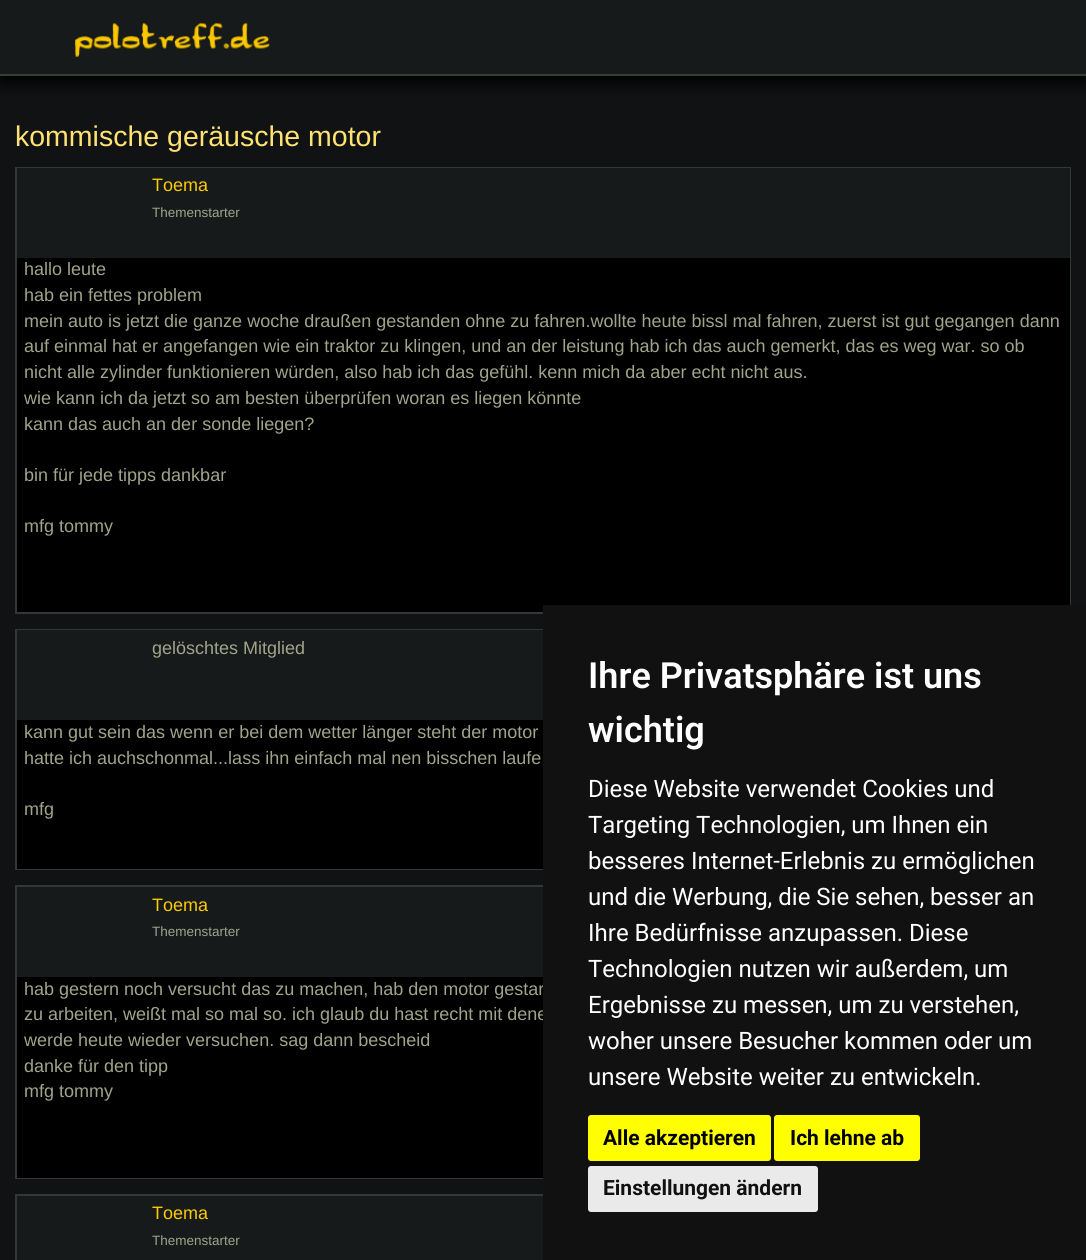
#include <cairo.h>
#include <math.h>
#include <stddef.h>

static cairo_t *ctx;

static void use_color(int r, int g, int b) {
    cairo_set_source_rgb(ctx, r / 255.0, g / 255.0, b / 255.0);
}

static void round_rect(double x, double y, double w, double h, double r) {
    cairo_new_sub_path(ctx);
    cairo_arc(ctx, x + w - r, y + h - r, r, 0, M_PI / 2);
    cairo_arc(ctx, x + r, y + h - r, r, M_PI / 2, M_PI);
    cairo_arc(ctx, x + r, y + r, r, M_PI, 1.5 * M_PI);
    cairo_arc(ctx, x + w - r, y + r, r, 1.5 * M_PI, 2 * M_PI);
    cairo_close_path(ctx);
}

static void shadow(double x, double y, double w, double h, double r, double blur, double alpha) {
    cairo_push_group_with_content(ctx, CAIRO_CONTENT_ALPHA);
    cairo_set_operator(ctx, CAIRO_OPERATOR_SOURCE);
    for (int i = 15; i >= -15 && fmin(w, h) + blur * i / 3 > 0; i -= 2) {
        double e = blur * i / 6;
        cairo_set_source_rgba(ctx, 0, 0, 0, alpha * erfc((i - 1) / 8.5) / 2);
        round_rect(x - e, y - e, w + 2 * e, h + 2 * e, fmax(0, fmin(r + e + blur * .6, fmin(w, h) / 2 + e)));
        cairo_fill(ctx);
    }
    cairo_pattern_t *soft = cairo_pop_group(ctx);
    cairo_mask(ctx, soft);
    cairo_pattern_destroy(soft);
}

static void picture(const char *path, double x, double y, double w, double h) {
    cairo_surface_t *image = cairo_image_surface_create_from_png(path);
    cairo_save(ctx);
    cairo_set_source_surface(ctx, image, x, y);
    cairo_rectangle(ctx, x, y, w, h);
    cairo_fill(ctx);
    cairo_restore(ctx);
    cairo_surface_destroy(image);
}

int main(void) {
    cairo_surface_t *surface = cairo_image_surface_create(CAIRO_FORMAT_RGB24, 1086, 1260);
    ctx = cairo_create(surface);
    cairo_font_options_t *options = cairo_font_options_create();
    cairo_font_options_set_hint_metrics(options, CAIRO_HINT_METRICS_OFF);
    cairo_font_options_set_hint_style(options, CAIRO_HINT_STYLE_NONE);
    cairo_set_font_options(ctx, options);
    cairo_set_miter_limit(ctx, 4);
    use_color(16, 18, 20);
    cairo_paint(ctx);
    use_color(0, 0, 0);
    shadow(0, 8, 1086, 75, 0, 7.5, 1);
    use_color(23, 26, 26);
    cairo_rectangle(ctx, 0, 0, 1086, 74);
    cairo_fill(ctx);
    use_color(56, 63, 49);
    cairo_rectangle(ctx, 0, 74, 1086, 2);
    cairo_fill(ctx);
    picture("img1.png", 75, 22, 195, 35);
    cairo_select_font_face(ctx, "Liberation Sans", CAIRO_FONT_SLANT_NORMAL, CAIRO_FONT_WEIGHT_NORMAL);
    cairo_set_font_size(ctx, 28.5);
    use_color(255, 226, 113);
    cairo_move_to(ctx, 15, 146);
    cairo_show_text(ctx, "kommische geräusche motor");
    cairo_rectangle(ctx, 16, 168, 1054, 445);
    use_color(50, 56, 56);
    cairo_stroke(ctx);
    use_color(23, 26, 26);
    cairo_rectangle(ctx, 17, 168, 1053, 90);
    cairo_fill(ctx);
    cairo_set_font_size(ctx, 18);
    use_color(253, 202, 0);
    cairo_move_to(ctx, 152, 191);
    cairo_show_text(ctx, "Toema");
    cairo_set_font_size(ctx, 13.5);
    use_color(161, 164, 139);
    cairo_move_to(ctx, 152, 217);
    cairo_show_text(ctx, "Themenstarter");
    use_color(0, 0, 0);
    cairo_rectangle(ctx, 17, 258, 1053, 354);
    cairo_fill(ctx);
    cairo_set_font_size(ctx, 18);
    use_color(161, 164, 139);
    cairo_move_to(ctx, 24, 275);
    cairo_show_text(ctx, "hallo leute");
    cairo_move_to(ctx, 24, 301);
    cairo_show_text(ctx, "hab ein fettes problem");
    cairo_move_to(ctx, 24, 327);
    cairo_show_text(ctx, "mein auto is jetzt die ganze woche draußen gestanden ohne zu fahren.wollte heute bissl mal fahren, zuerst ist gut gegangen dann");
    cairo_move_to(ctx, 24, 352);
    cairo_show_text(ctx, "auf einmal hat er angefangen wie ein traktor zu klingen, und an der leistung hab ich das auch gemerkt, das es weg war. so ob");
    cairo_move_to(ctx, 24, 378);
    cairo_show_text(ctx, "nicht alle zylinder funktionieren würden, also hab ich das gefühl. kenn mich da aber echt nicht aus.");
    cairo_move_to(ctx, 24, 404);
    cairo_show_text(ctx, "wie kann ich da jetzt so am besten überprüfen woran es liegen könnte");
    cairo_move_to(ctx, 24, 430);
    cairo_show_text(ctx, "kann das auch an der sonde liegen?");
    cairo_move_to(ctx, 24, 481);
    cairo_show_text(ctx, "bin für jede tipps dankbar");
    cairo_move_to(ctx, 24, 532);
    cairo_show_text(ctx, "mfg tommy");
    cairo_rectangle(ctx, 16, 630, 1054, 239);
    use_color(50, 56, 56);
    cairo_stroke(ctx);
    use_color(23, 26, 26);
    cairo_rectangle(ctx, 17, 630, 526, 90);
    cairo_fill(ctx);
    use_color(161, 164, 139);
    cairo_move_to(ctx, 152, 654);
    cairo_show_text(ctx, "gelöschtes Mitglied");
    use_color(0, 0, 0);
    cairo_rectangle(ctx, 17, 720, 526, 149);
    cairo_fill(ctx);
    use_color(161, 164, 139);
    cairo_move_to(ctx, 24, 738);
    cairo_show_text(ctx, "kann gut sein das wenn er bei dem wetter länger steht der motor");
    cairo_move_to(ctx, 24, 764);
    cairo_show_text(ctx, "hatte ich auchschonmal...lass ihn einfach mal nen bisschen laufe");
    cairo_move_to(ctx, 24, 815);
    cairo_show_text(ctx, "mfg");
    cairo_rectangle(ctx, 16, 886, 1054, 292);
    use_color(50, 56, 56);
    cairo_stroke(ctx);
    use_color(23, 26, 26);
    cairo_rectangle(ctx, 17, 887, 526, 90);
    cairo_fill(ctx);
    use_color(253, 202, 0);
    cairo_move_to(ctx, 152, 911);
    cairo_show_text(ctx, "Toema");
    cairo_set_font_size(ctx, 13.5);
    use_color(161, 164, 139);
    cairo_move_to(ctx, 152, 936);
    cairo_show_text(ctx, "Themenstarter");
    use_color(0, 0, 0);
    cairo_rectangle(ctx, 17, 977, 526, 201);
    cairo_fill(ctx);
    cairo_set_font_size(ctx, 18);
    use_color(161, 164, 139);
    cairo_move_to(ctx, 24, 995);
    cairo_show_text(ctx, "hab gestern noch versucht das zu machen, hab den motor gestar");
    cairo_move_to(ctx, 24, 1020);
    cairo_show_text(ctx, "zu arbeiten, weißt mal so mal so. ich glaub du hast recht mit dene");
    cairo_move_to(ctx, 24, 1046);
    cairo_show_text(ctx, "werde heute wieder versuchen. sag dann bescheid");
    cairo_move_to(ctx, 24, 1072);
    cairo_show_text(ctx, "danke für den tipp");
    cairo_move_to(ctx, 24, 1097);
    cairo_show_text(ctx, "mfg tommy");
    cairo_rectangle(ctx, 16, 1195, 1054, 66);
    use_color(50, 56, 56);
    cairo_stroke(ctx);
    use_color(23, 26, 26);
    cairo_rectangle(ctx, 17, 1196, 526, 64);
    cairo_fill(ctx);
    use_color(253, 202, 0);
    cairo_move_to(ctx, 152, 1219);
    cairo_show_text(ctx, "Toema");
    cairo_set_font_size(ctx, 13.5);
    use_color(161, 164, 139);
    cairo_move_to(ctx, 152, 1245);
    cairo_show_text(ctx, "Themenstarter");
    use_color(17, 17, 17);
    cairo_rectangle(ctx, 543, 605, 543, 655);
    cairo_fill(ctx);
    cairo_select_font_face(ctx, "Roboto SemiBold", CAIRO_FONT_SLANT_NORMAL, CAIRO_FONT_WEIGHT_NORMAL);
    cairo_set_font_size(ctx, 36);
    use_color(255, 255, 255);
    cairo_move_to(ctx, 588, 688);
    cairo_show_text(ctx, "Ihre Privatsphäre ist uns");
    cairo_move_to(ctx, 588, 742);
    cairo_show_text(ctx, "wichtig");
    cairo_select_font_face(ctx, "Roboto", CAIRO_FONT_SLANT_NORMAL, CAIRO_FONT_WEIGHT_NORMAL);
    cairo_set_font_size(ctx, 24);
    cairo_move_to(ctx, 588, 797);
    cairo_show_text(ctx, "Diese Website verwendet Cookies und");
    cairo_move_to(ctx, 588, 833);
    cairo_show_text(ctx, "Targeting Technologien, um Ihnen ein");
    cairo_move_to(ctx, 588, 869);
    cairo_show_text(ctx, "besseres Internet-Erlebnis zu ermöglichen");
    cairo_move_to(ctx, 588, 905);
    cairo_show_text(ctx, "und die Werbung, die Sie sehen, besser an");
    cairo_move_to(ctx, 588, 941);
    cairo_show_text(ctx, "Ihre Bedürfnisse anzupassen. Diese");
    cairo_move_to(ctx, 588, 977);
    cairo_show_text(ctx, "Technologien nutzen wir außerdem, um");
    cairo_move_to(ctx, 588, 1013);
    cairo_show_text(ctx, "Ergebnisse zu messen, um zu verstehen,");
    cairo_move_to(ctx, 588, 1049);
    cairo_show_text(ctx, "woher unsere Besucher kommen oder um");
    cairo_move_to(ctx, 588, 1085);
    cairo_show_text(ctx, "unsere Website weiter zu entwickeln.");
    use_color(255, 255, 0);
    round_rect(588, 1115, 183, 46, 3);
    cairo_fill(ctx);
    cairo_select_font_face(ctx, "Roboto", CAIRO_FONT_SLANT_NORMAL, CAIRO_FONT_WEIGHT_BOLD);
    cairo_set_font_size(ctx, 21);
    use_color(0, 0, 0);
    cairo_move_to(ctx, 603, 1145);
    cairo_show_text(ctx, "Alle akzeptieren");
    use_color(255, 255, 0);
    round_rect(774, 1115, 146, 46, 3);
    cairo_fill(ctx);
    use_color(0, 0, 0);
    cairo_move_to(ctx, 790, 1145);
    cairo_show_text(ctx, "Ich lehne ab");
    use_color(234, 234, 234);
    round_rect(588, 1166, 230, 46, 3);
    cairo_fill(ctx);
    use_color(17, 17, 17);
    cairo_move_to(ctx, 603, 1195);
    cairo_show_text(ctx, "Einstellungen ändern");
    cairo_surface_write_to_png(surface, "result.png");
    cairo_font_options_destroy(options);
    cairo_destroy(ctx);
    cairo_surface_destroy(surface);
    return 0;
}
